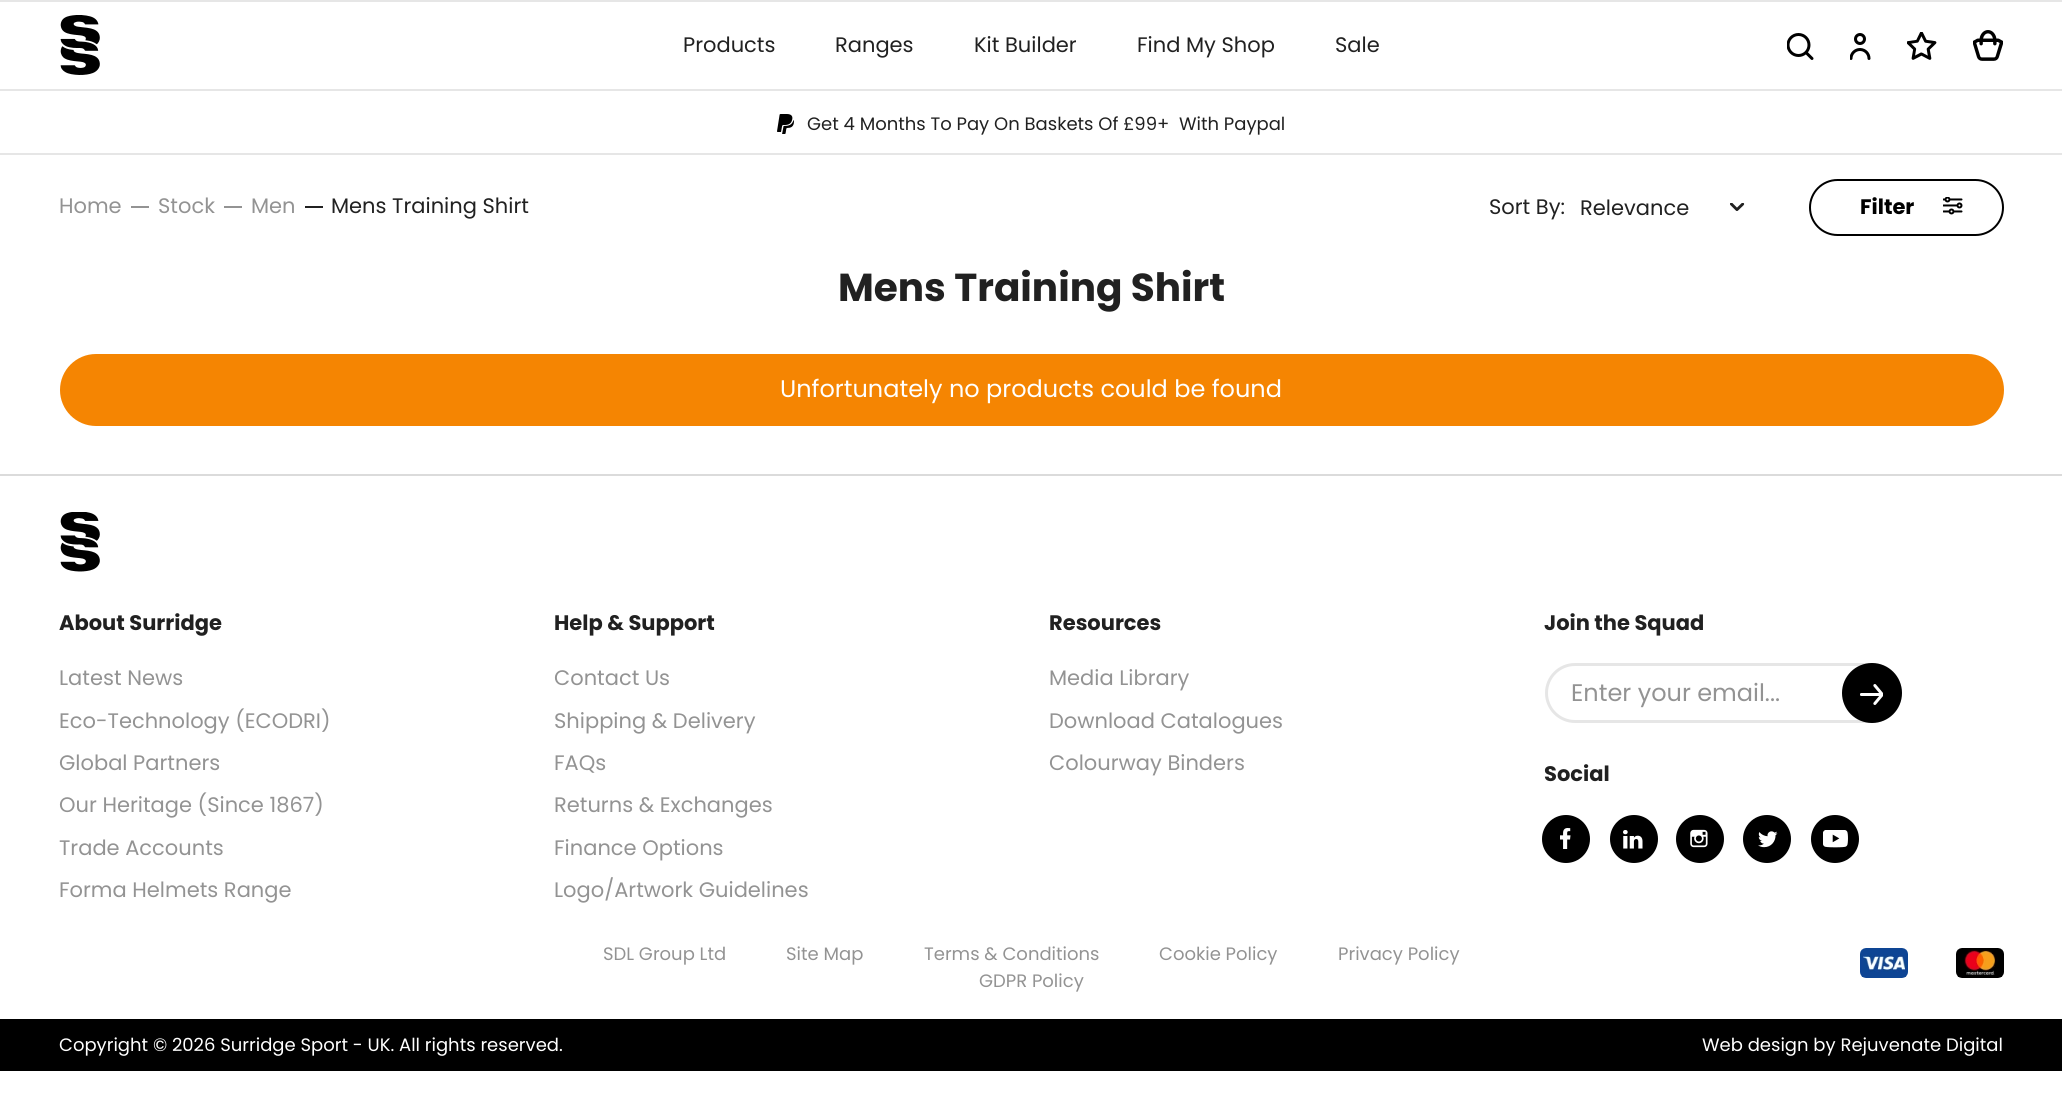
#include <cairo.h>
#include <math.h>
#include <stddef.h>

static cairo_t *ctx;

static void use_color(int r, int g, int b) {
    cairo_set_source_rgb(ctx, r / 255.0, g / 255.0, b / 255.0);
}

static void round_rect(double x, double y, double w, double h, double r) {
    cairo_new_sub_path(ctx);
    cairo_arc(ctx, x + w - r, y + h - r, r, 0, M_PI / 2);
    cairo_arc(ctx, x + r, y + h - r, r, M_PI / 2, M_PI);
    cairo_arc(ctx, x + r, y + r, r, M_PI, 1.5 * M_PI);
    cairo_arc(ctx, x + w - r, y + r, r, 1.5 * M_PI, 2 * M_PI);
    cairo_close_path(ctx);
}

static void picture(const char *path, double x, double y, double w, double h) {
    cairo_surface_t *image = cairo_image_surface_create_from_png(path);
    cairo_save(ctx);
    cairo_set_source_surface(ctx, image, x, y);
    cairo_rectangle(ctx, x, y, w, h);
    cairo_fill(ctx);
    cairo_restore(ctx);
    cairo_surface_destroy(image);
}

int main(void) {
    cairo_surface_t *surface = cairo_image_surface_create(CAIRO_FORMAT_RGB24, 2062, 1101);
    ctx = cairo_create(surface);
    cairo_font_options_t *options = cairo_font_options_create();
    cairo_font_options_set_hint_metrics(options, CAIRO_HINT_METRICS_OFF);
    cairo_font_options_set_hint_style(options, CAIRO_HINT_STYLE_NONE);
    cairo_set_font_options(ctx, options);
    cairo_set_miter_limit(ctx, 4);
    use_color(255, 255, 255);
    cairo_paint(ctx);
    use_color(230, 230, 230);
    cairo_rectangle(ctx, 0, 0, 2062, 2);
    cairo_fill(ctx);
    cairo_rectangle(ctx, 0, 89, 2062, 2);
    cairo_fill(ctx);
    picture("img1.png", 60, 15, 40, 60);
    cairo_select_font_face(ctx, "Poppins", CAIRO_FONT_SLANT_NORMAL, CAIRO_FONT_WEIGHT_NORMAL);
    cairo_set_font_size(ctx, 21);
    use_color(33, 33, 33);
    cairo_move_to(ctx, 683, 52);
    cairo_show_text(ctx, "Products");
    cairo_move_to(ctx, 835, 52);
    cairo_show_text(ctx, "Ranges");
    cairo_move_to(ctx, 974, 52);
    cairo_show_text(ctx, "Kit Builder");
    cairo_move_to(ctx, 1137, 52);
    cairo_show_text(ctx, "Find My Shop");
    cairo_move_to(ctx, 1335, 52);
    cairo_show_text(ctx, "Sale");
    picture("img2.png", 1787, 33, 27, 27);
    picture("img3.png", 1850, 33, 21, 27);
    picture("img4.png", 1907, 32, 30, 28);
    picture("img5.png", 1973, 30, 30, 31);
    use_color(230, 230, 230);
    cairo_rectangle(ctx, 0, 153, 2062, 2);
    cairo_fill(ctx);
    picture("img6.png", 777, 114, 17, 20);
    cairo_set_font_size(ctx, 18);
    use_color(33, 33, 33);
    cairo_move_to(ctx, 807, 130);
    cairo_show_text(ctx, "Get 4 Months To Pay On Baskets Of £99+  With Paypal");
    cairo_set_font_size(ctx, 21);
    use_color(147, 147, 147);
    cairo_move_to(ctx, 59, 213);
    cairo_show_text(ctx, "Home");
    cairo_rectangle(ctx, 131, 206, 18, 2);
    cairo_fill(ctx);
    cairo_move_to(ctx, 158, 213);
    cairo_show_text(ctx, "Stock");
    cairo_rectangle(ctx, 224, 206, 18, 2);
    cairo_fill(ctx);
    cairo_move_to(ctx, 251, 213);
    cairo_show_text(ctx, "Men");
    use_color(33, 33, 33);
    cairo_rectangle(ctx, 305, 206, 18, 2);
    cairo_fill(ctx);
    cairo_move_to(ctx, 331, 213);
    cairo_show_text(ctx, "Mens Training Shirt");
    cairo_move_to(ctx, 1489, 214);
    cairo_show_text(ctx, "Sort By:");
    cairo_move_to(ctx, 1580, 215);
    cairo_show_text(ctx, "Relevance");
    picture("img7.png", 1730, 203, 15, 8);
    round_rect(1810, 180, 193, 55, 27.5);
    use_color(0, 0, 0);
    cairo_stroke(ctx);
    cairo_select_font_face(ctx, "Poppins", CAIRO_FONT_SLANT_NORMAL, CAIRO_FONT_WEIGHT_BOLD);
    cairo_move_to(ctx, 1860, 214);
    cairo_show_text(ctx, "Filter");
    picture("img8.png", 1943, 197, 20, 18);
    cairo_set_font_size(ctx, 39);
    use_color(33, 33, 33);
    cairo_move_to(ctx, 838, 301);
    cairo_show_text(ctx, "Mens Training Shirt");
    use_color(245, 133, 2);
    round_rect(60, 354, 1944, 72, 36);
    cairo_fill(ctx);
    cairo_select_font_face(ctx, "Poppins", CAIRO_FONT_SLANT_NORMAL, CAIRO_FONT_WEIGHT_NORMAL);
    cairo_set_font_size(ctx, 24);
    use_color(255, 255, 255);
    cairo_move_to(ctx, 780, 397);
    cairo_show_text(ctx, "Unfortunately no products could be found");
    use_color(219, 219, 219);
    cairo_rectangle(ctx, 0, 474, 2062, 2);
    cairo_fill(ctx);
    picture("img9.png", 60, 512, 40, 60);
    cairo_select_font_face(ctx, "Poppins", CAIRO_FONT_SLANT_NORMAL, CAIRO_FONT_WEIGHT_BOLD);
    cairo_set_font_size(ctx, 21);
    use_color(33, 33, 33);
    cairo_move_to(ctx, 59, 630);
    cairo_show_text(ctx, "About Surridge");
    cairo_select_font_face(ctx, "Poppins", CAIRO_FONT_SLANT_NORMAL, CAIRO_FONT_WEIGHT_NORMAL);
    use_color(147, 147, 147);
    cairo_move_to(ctx, 59, 685);
    cairo_show_text(ctx, "Latest News");
    cairo_move_to(ctx, 59, 728);
    cairo_show_text(ctx, "Eco-Technology (ECODRI)");
    cairo_move_to(ctx, 59, 770);
    cairo_show_text(ctx, "Global Partners");
    cairo_move_to(ctx, 59, 812);
    cairo_show_text(ctx, "Our Heritage (Since 1867)");
    cairo_move_to(ctx, 59, 855);
    cairo_show_text(ctx, "Trade Accounts");
    cairo_move_to(ctx, 59, 897);
    cairo_show_text(ctx, "Forma Helmets Range");
    cairo_select_font_face(ctx, "Poppins", CAIRO_FONT_SLANT_NORMAL, CAIRO_FONT_WEIGHT_BOLD);
    use_color(33, 33, 33);
    cairo_move_to(ctx, 554, 630);
    cairo_show_text(ctx, "Help & Support");
    cairo_select_font_face(ctx, "Poppins", CAIRO_FONT_SLANT_NORMAL, CAIRO_FONT_WEIGHT_NORMAL);
    use_color(147, 147, 147);
    cairo_move_to(ctx, 554, 685);
    cairo_show_text(ctx, "Contact Us");
    cairo_move_to(ctx, 554, 728);
    cairo_show_text(ctx, "Shipping & Delivery");
    cairo_move_to(ctx, 554, 770);
    cairo_show_text(ctx, "FAQs");
    cairo_move_to(ctx, 554, 812);
    cairo_show_text(ctx, "Returns & Exchanges");
    cairo_move_to(ctx, 554, 855);
    cairo_show_text(ctx, "Finance Options");
    cairo_move_to(ctx, 554, 897);
    cairo_show_text(ctx, "Logo/Artwork Guidelines");
    cairo_select_font_face(ctx, "Poppins", CAIRO_FONT_SLANT_NORMAL, CAIRO_FONT_WEIGHT_BOLD);
    use_color(33, 33, 33);
    cairo_move_to(ctx, 1049, 630);
    cairo_show_text(ctx, "Resources");
    cairo_select_font_face(ctx, "Poppins", CAIRO_FONT_SLANT_NORMAL, CAIRO_FONT_WEIGHT_NORMAL);
    use_color(147, 147, 147);
    cairo_move_to(ctx, 1049, 685);
    cairo_show_text(ctx, "Media Library");
    cairo_move_to(ctx, 1049, 728);
    cairo_show_text(ctx, "Download Catalogues");
    cairo_move_to(ctx, 1049, 770);
    cairo_show_text(ctx, "Colourway Binders");
    cairo_select_font_face(ctx, "Poppins", CAIRO_FONT_SLANT_NORMAL, CAIRO_FONT_WEIGHT_BOLD);
    use_color(33, 33, 33);
    cairo_move_to(ctx, 1544, 630);
    cairo_show_text(ctx, "Join the Squad");
    round_rect(1546.5, 664.5, 354, 57, 28.5);
    use_color(230, 230, 230);
    cairo_set_line_width(ctx, 3);
    cairo_stroke(ctx);
    cairo_select_font_face(ctx, "Poppins", CAIRO_FONT_SLANT_NORMAL, CAIRO_FONT_WEIGHT_NORMAL);
    cairo_set_font_size(ctx, 24);
    use_color(147, 147, 147);
    cairo_move_to(ctx, 1571, 701);
    cairo_show_text(ctx, "Enter your email...");
    use_color(0, 0, 0);
    cairo_new_path(ctx);
    cairo_arc(ctx, 1872, 693, 28.5, 0, 2 * M_PI);
    cairo_fill_preserve(ctx);
    cairo_stroke(ctx);
    picture("img10.png", 1860, 684, 23, 21);
    cairo_select_font_face(ctx, "Poppins", CAIRO_FONT_SLANT_NORMAL, CAIRO_FONT_WEIGHT_BOLD);
    cairo_set_font_size(ctx, 21);
    use_color(33, 33, 33);
    cairo_move_to(ctx, 1544, 781);
    cairo_show_text(ctx, "Social");
    use_color(0, 0, 0);
    cairo_new_path(ctx);
    cairo_arc(ctx, 1566, 839, 24, 0, 2 * M_PI);
    cairo_fill(ctx);
    picture("img11.png", 1560, 828, 11, 21);
    cairo_arc(ctx, 1634, 839, 24, 0, 2 * M_PI);
    cairo_fill(ctx);
    picture("img12.png", 1623, 830, 20, 19);
    cairo_arc(ctx, 1700, 839, 24, 0, 2 * M_PI);
    cairo_fill(ctx);
    picture("img13.png", 1690, 829, 18, 19);
    cairo_arc(ctx, 1767, 839, 24, 0, 2 * M_PI);
    cairo_fill(ctx);
    picture("img14.png", 1758, 831, 20, 17);
    cairo_arc(ctx, 1835, 839, 24, 0, 2 * M_PI);
    cairo_fill(ctx);
    picture("img15.png", 1823, 830, 25, 18);
    cairo_select_font_face(ctx, "Poppins", CAIRO_FONT_SLANT_NORMAL, CAIRO_FONT_WEIGHT_NORMAL);
    cairo_set_font_size(ctx, 18);
    use_color(147, 147, 147);
    cairo_move_to(ctx, 603, 960);
    cairo_show_text(ctx, "SDL Group Ltd");
    cairo_move_to(ctx, 786, 960);
    cairo_show_text(ctx, "Site Map");
    cairo_move_to(ctx, 924, 960);
    cairo_show_text(ctx, "Terms & Conditions");
    cairo_move_to(ctx, 1159, 960);
    cairo_show_text(ctx, "Cookie Policy");
    cairo_move_to(ctx, 1338, 960);
    cairo_show_text(ctx, "Privacy Policy");
    cairo_move_to(ctx, 979, 987);
    cairo_show_text(ctx, "GDPR Policy");
    picture("img16.png", 1860, 948, 48, 30);
    picture("img17.png", 1956, 948, 48, 30);
    use_color(0, 0, 0);
    cairo_rectangle(ctx, 0, 1019, 2062, 52);
    cairo_fill(ctx);
    use_color(255, 255, 255);
    cairo_move_to(ctx, 59, 1051);
    cairo_show_text(ctx, "Copyright © 2026 Surridge Sport - UK. All rights reserved.");
    cairo_move_to(ctx, 1702, 1051);
    cairo_show_text(ctx, "Web design by Rejuvenate Digital");
    cairo_surface_write_to_png(surface, "result.png");
    cairo_font_options_destroy(options);
    cairo_destroy(ctx);
    cairo_surface_destroy(surface);
    return 0;
}
